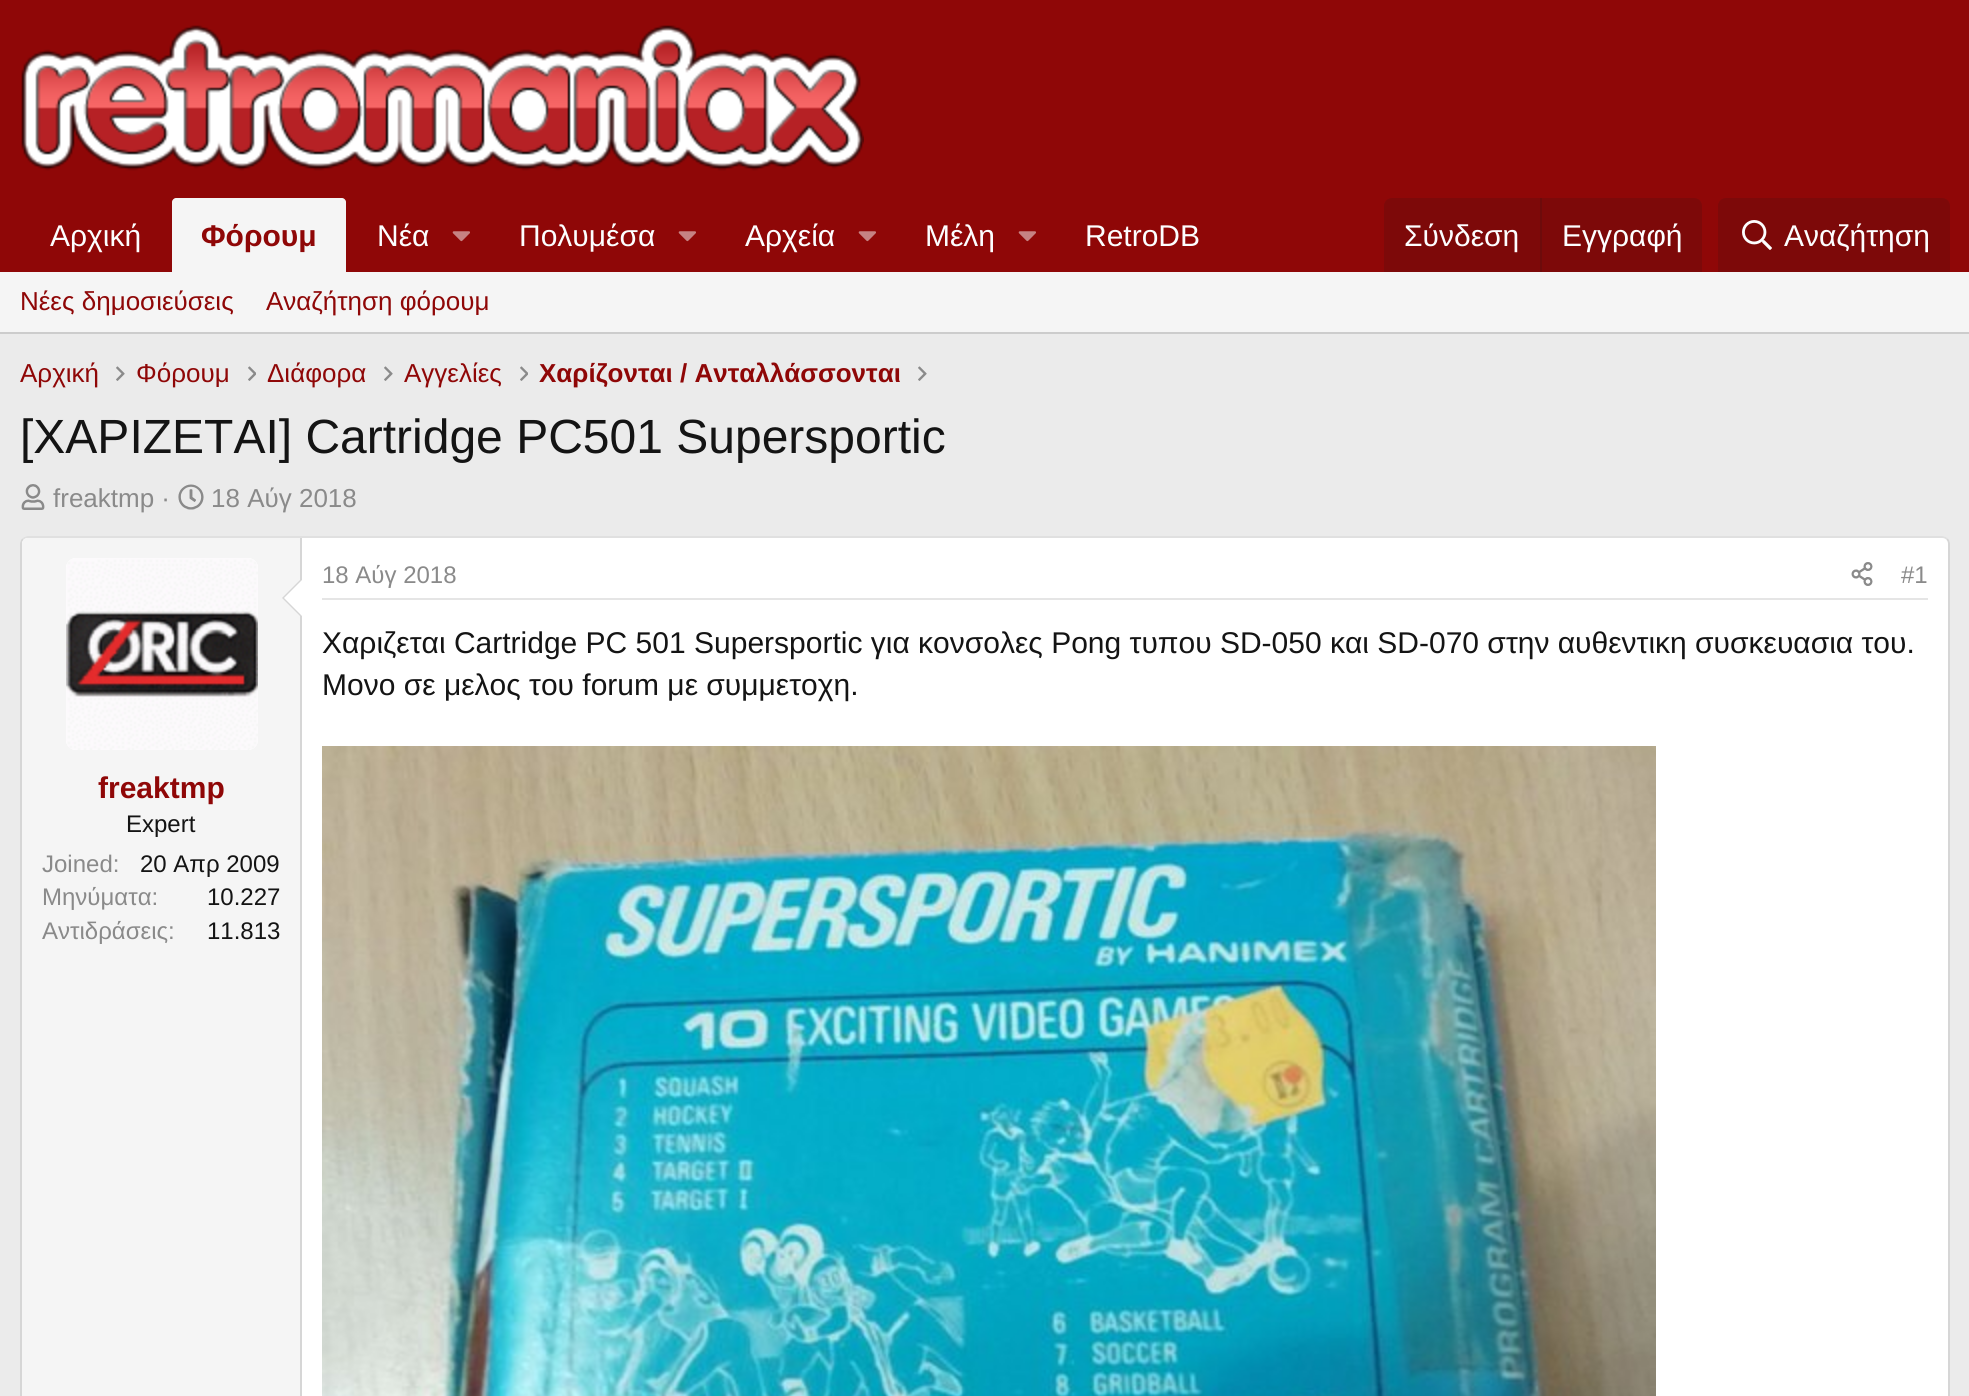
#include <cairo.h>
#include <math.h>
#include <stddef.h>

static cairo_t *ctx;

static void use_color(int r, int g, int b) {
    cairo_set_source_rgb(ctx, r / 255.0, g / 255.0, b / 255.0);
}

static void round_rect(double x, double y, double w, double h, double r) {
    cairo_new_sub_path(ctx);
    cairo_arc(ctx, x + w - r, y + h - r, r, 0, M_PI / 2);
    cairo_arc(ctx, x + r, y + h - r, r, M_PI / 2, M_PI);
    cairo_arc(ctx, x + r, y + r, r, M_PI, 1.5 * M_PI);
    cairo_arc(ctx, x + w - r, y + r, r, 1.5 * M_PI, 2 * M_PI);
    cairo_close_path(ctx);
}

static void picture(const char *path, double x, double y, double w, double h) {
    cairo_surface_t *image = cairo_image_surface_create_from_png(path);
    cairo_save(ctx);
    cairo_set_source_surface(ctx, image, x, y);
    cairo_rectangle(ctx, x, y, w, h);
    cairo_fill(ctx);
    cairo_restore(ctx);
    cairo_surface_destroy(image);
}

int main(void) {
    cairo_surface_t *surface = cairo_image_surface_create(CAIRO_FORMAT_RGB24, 1969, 1396);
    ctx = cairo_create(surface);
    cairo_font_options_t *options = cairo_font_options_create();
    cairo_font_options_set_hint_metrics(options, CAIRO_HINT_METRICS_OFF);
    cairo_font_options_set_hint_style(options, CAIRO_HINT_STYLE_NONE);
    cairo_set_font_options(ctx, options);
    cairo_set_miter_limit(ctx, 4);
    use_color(235, 235, 235);
    cairo_paint(ctx);
    use_color(143, 7, 7);
    cairo_rectangle(ctx, 0, 0, 1969, 272);
    cairo_fill(ctx);
    picture("img1.png", 21, 25, 843, 146);
    cairo_select_font_face(ctx, "Liberation Sans", CAIRO_FONT_SLANT_NORMAL, CAIRO_FONT_WEIGHT_NORMAL);
    cairo_set_font_size(ctx, 30);
    use_color(253, 254, 255);
    cairo_move_to(ctx, 50, 246);
    cairo_show_text(ctx, "Αρχική");
    use_color(245, 245, 245);
    cairo_new_path(ctx);
    cairo_move_to(ctx, 176, 198);
    cairo_line_to(ctx, 342, 198);
    cairo_curve_to(ctx, 344, 198, 346, 200, 346, 202);
    cairo_line_to(ctx, 346, 272);
    cairo_line_to(ctx, 172, 272);
    cairo_line_to(ctx, 172, 202);
    cairo_curve_to(ctx, 172, 200, 174, 198, 176, 198);
    cairo_close_path(ctx);
    cairo_fill(ctx);
    cairo_select_font_face(ctx, "Liberation Sans", CAIRO_FONT_SLANT_NORMAL, CAIRO_FONT_WEIGHT_BOLD);
    use_color(143, 7, 7);
    cairo_move_to(ctx, 201, 246);
    cairo_show_text(ctx, "Φόρουμ");
    cairo_select_font_face(ctx, "Liberation Sans", CAIRO_FONT_SLANT_NORMAL, CAIRO_FONT_WEIGHT_NORMAL);
    use_color(253, 254, 255);
    cairo_move_to(ctx, 377, 246);
    cairo_show_text(ctx, "Νέα");
    picture("img2.png", 452, 231, 18, 11);
    cairo_move_to(ctx, 519, 246);
    cairo_show_text(ctx, "Πολυμέσα");
    picture("img2.png", 678, 231, 18, 11);
    cairo_move_to(ctx, 745, 246);
    cairo_show_text(ctx, "Αρχεία");
    picture("img2.png", 858, 231, 18, 11);
    cairo_move_to(ctx, 925, 246);
    cairo_show_text(ctx, "Μέλη");
    picture("img2.png", 1018, 231, 18, 11);
    cairo_move_to(ctx, 1085, 246);
    cairo_show_text(ctx, "RetroDB");
    use_color(125, 9, 9);
    cairo_new_path(ctx);
    cairo_move_to(ctx, 1392, 198);
    cairo_line_to(ctx, 1694, 198);
    cairo_curve_to(ctx, 1698.5, 198, 1702, 201.5, 1702, 206);
    cairo_line_to(ctx, 1702, 272);
    cairo_line_to(ctx, 1384, 272);
    cairo_line_to(ctx, 1384, 206);
    cairo_curve_to(ctx, 1384, 201.5, 1387.5, 198, 1392, 198);
    cairo_close_path(ctx);
    cairo_fill(ctx);
    use_color(253, 254, 255);
    cairo_move_to(ctx, 1404, 246);
    cairo_show_text(ctx, "Σύνδεση");
    use_color(109, 11, 11);
    cairo_rectangle(ctx, 1540, 198, 2, 74);
    cairo_fill(ctx);
    use_color(253, 254, 255);
    cairo_move_to(ctx, 1562, 246);
    cairo_show_text(ctx, "Εγγραφή");
    use_color(125, 9, 9);
    cairo_new_path(ctx);
    cairo_move_to(ctx, 1726, 198);
    cairo_line_to(ctx, 1942, 198);
    cairo_curve_to(ctx, 1946.5, 198, 1950, 201.5, 1950, 206);
    cairo_line_to(ctx, 1950, 272);
    cairo_line_to(ctx, 1718, 272);
    cairo_line_to(ctx, 1718, 206);
    cairo_curve_to(ctx, 1718, 201.5, 1721.5, 198, 1726, 198);
    cairo_close_path(ctx);
    cairo_fill(ctx);
    picture("img3.png", 1742, 220, 30, 30);
    use_color(253, 254, 255);
    cairo_move_to(ctx, 1784, 246);
    cairo_show_text(ctx, "Αναζήτηση");
    use_color(245, 245, 245);
    cairo_rectangle(ctx, 0, 272, 1969, 60);
    cairo_fill(ctx);
    use_color(204, 204, 204);
    cairo_rectangle(ctx, 0, 332, 1969, 2);
    cairo_fill(ctx);
    cairo_set_font_size(ctx, 26);
    use_color(143, 7, 7);
    cairo_move_to(ctx, 20, 310);
    cairo_show_text(ctx, "Νέες δημοσιεύσεις");
    cairo_move_to(ctx, 266, 310);
    cairo_show_text(ctx, "Αναζήτηση φόρουμ");
    cairo_move_to(ctx, 20, 382);
    cairo_show_text(ctx, "Αρχική");
    picture("img4.png", 116, 366, 9, 15);
    cairo_move_to(ctx, 136, 382);
    cairo_show_text(ctx, "Φόρουμ");
    picture("img5.png", 248, 366, 8, 15);
    cairo_move_to(ctx, 267, 382);
    cairo_show_text(ctx, "Διάφορα");
    picture("img4.png", 384, 366, 9, 15);
    cairo_move_to(ctx, 404, 382);
    cairo_show_text(ctx, "Aγγελίες");
    picture("img5.png", 520, 366, 8, 15);
    cairo_select_font_face(ctx, "Liberation Sans", CAIRO_FONT_SLANT_NORMAL, CAIRO_FONT_WEIGHT_BOLD);
    cairo_move_to(ctx, 539, 382);
    cairo_show_text(ctx, "Χαρίζονται / Ανταλλάσσονται");
    picture("img4.png", 918, 366, 9, 15);
    cairo_select_font_face(ctx, "Liberation Sans", CAIRO_FONT_SLANT_NORMAL, CAIRO_FONT_WEIGHT_NORMAL);
    cairo_set_font_size(ctx, 48);
    use_color(20, 20, 20);
    cairo_move_to(ctx, 20, 453);
    cairo_show_text(ctx, "[ΧΑΡΙΖΕΤΑΙ] Cartridge PC501 Supersportic");
    picture("img6.png", 21, 484, 24, 26);
    cairo_set_font_size(ctx, 26);
    use_color(138, 138, 138);
    cairo_move_to(ctx, 53, 507);
    cairo_show_text(ctx, "freaktmp ·");
    picture("img7.png", 178, 484, 26, 26);
    cairo_move_to(ctx, 211, 507);
    cairo_show_text(ctx, "18 Αύγ 2018");
    use_color(255, 255, 255);
    round_rect(20, 536, 1930, 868, 8);
    cairo_fill(ctx);
    cairo_new_path(ctx);
    cairo_move_to(ctx, 23, 539);
    cairo_curve_to(ctx, 24.5, 537.5, 26, 537, 28, 537);
    cairo_line_to(ctx, 1942, 537);
    cairo_curve_to(ctx, 1944, 537, 1945.5, 537.5, 1947, 539);
    use_color(224, 224, 224);
    cairo_stroke(ctx);
    cairo_new_path(ctx);
    cairo_move_to(ctx, 1947, 539);
    cairo_curve_to(ctx, 1948.5, 540.5, 1949, 542, 1949, 544);
    cairo_line_to(ctx, 1949, 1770);
    cairo_curve_to(ctx, 1949, 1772, 1948.5, 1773.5, 1947, 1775);
    use_color(214, 214, 214);
    cairo_stroke(ctx);
    cairo_new_path(ctx);
    cairo_move_to(ctx, 23, 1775);
    cairo_curve_to(ctx, 21.5, 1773.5, 21, 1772, 21, 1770);
    cairo_line_to(ctx, 21, 544);
    cairo_curve_to(ctx, 21, 542, 21.5, 540.5, 23, 539);
    cairo_stroke(ctx);
    use_color(229, 229, 229);
    cairo_rectangle(ctx, 322, 598, 1606, 2);
    cairo_fill(ctx);
    cairo_set_font_size(ctx, 24);
    use_color(138, 138, 138);
    cairo_move_to(ctx, 322, 583);
    cairo_show_text(ctx, "18 Αύγ 2018");
    picture("img8.png", 1851, 562, 22, 24);
    cairo_move_to(ctx, 1901, 583);
    cairo_show_text(ctx, "#1");
    cairo_set_font_size(ctx, 30);
    use_color(20, 20, 20);
    cairo_move_to(ctx, 322, 653);
    cairo_show_text(ctx, "Χαριζεται Cartridge PC 501 Supersportic για κονσολες Pong τυπου SD-050 και SD-070 στην αυθεντικη συσκευασια του.");
    cairo_move_to(ctx, 322, 695);
    cairo_show_text(ctx, "Μονο σε μελος του forum με συμμετοχη.");
    picture("img9.png", 322, 746, 1334, 650);
    use_color(245, 245, 245);
    cairo_new_path(ctx);
    cairo_move_to(ctx, 28, 538);
    cairo_line_to(ctx, 302, 538);
    cairo_line_to(ctx, 302, 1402);
    cairo_line_to(ctx, 28, 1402);
    cairo_curve_to(ctx, 24.5, 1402, 22, 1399.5, 22, 1396);
    cairo_line_to(ctx, 22, 544);
    cairo_curve_to(ctx, 22, 540.5, 24.5, 538, 28, 538);
    cairo_close_path(ctx);
    cairo_fill(ctx);
    use_color(214, 214, 214);
    cairo_rectangle(ctx, 300, 538, 2, 858);
    cairo_fill(ctx);
    use_color(255, 255, 255);
    round_rect(66, 558, 192, 192, 10);
    cairo_fill(ctx);
    picture("img10.png", 66, 558, 192, 192);
    use_color(214, 214, 214);
    cairo_new_path(ctx);
    cairo_move_to(ctx, 302, 578);
    cairo_line_to(ctx, 302, 618);
    cairo_line_to(ctx, 282, 598);
    cairo_close_path(ctx);
    cairo_fill(ctx);
    use_color(255, 255, 255);
    cairo_new_path(ctx);
    cairo_move_to(ctx, 302, 580);
    cairo_line_to(ctx, 302, 616);
    cairo_line_to(ctx, 284, 598);
    cairo_close_path(ctx);
    cairo_fill(ctx);
    cairo_select_font_face(ctx, "Liberation Sans", CAIRO_FONT_SLANT_NORMAL, CAIRO_FONT_WEIGHT_BOLD);
    use_color(143, 7, 7);
    cairo_move_to(ctx, 98, 798);
    cairo_show_text(ctx, "freaktmp");
    cairo_select_font_face(ctx, "Liberation Sans", CAIRO_FONT_SLANT_NORMAL, CAIRO_FONT_WEIGHT_NORMAL);
    cairo_set_font_size(ctx, 24);
    use_color(20, 20, 20);
    cairo_move_to(ctx, 126, 832);
    cairo_show_text(ctx, "Expert");
    use_color(138, 138, 138);
    cairo_move_to(ctx, 42, 872);
    cairo_show_text(ctx, "Joined:");
    use_color(20, 20, 20);
    cairo_move_to(ctx, 140, 872);
    cairo_show_text(ctx, "20 Απρ 2009");
    use_color(138, 138, 138);
    cairo_move_to(ctx, 42, 905);
    cairo_show_text(ctx, "Μηνύματα:");
    use_color(20, 20, 20);
    cairo_move_to(ctx, 207, 905);
    cairo_show_text(ctx, "10.227");
    use_color(138, 138, 138);
    cairo_move_to(ctx, 42, 939);
    cairo_show_text(ctx, "Αντιδράσεις:");
    use_color(20, 20, 20);
    cairo_move_to(ctx, 207, 939);
    cairo_show_text(ctx, "11.813");
    cairo_surface_write_to_png(surface, "result.png");
    cairo_font_options_destroy(options);
    cairo_destroy(ctx);
    cairo_surface_destroy(surface);
    return 0;
}
